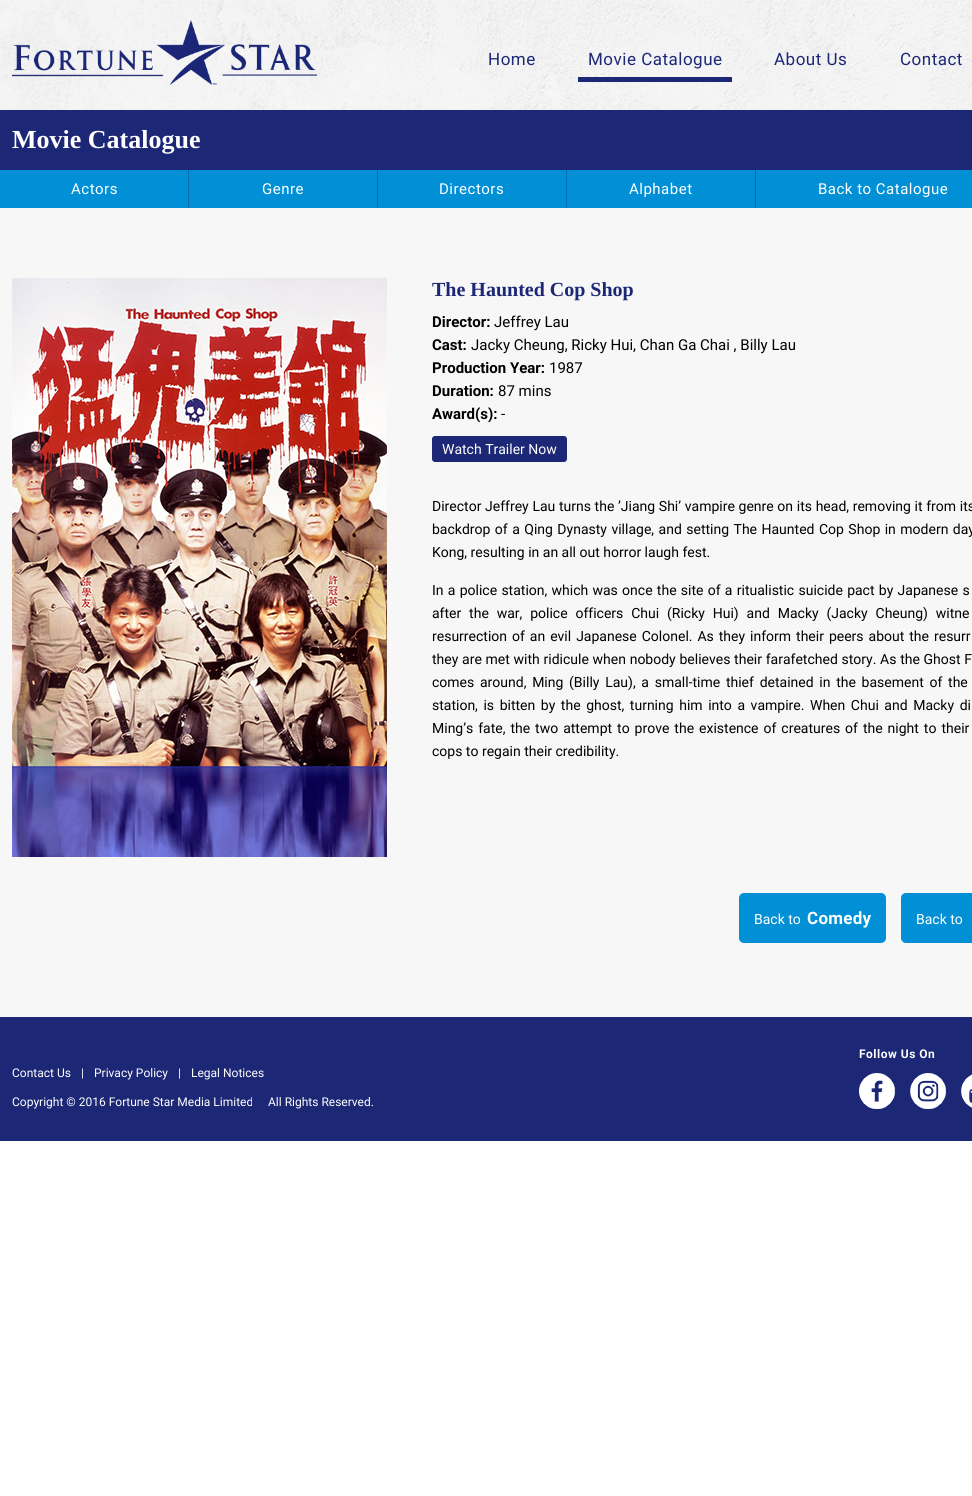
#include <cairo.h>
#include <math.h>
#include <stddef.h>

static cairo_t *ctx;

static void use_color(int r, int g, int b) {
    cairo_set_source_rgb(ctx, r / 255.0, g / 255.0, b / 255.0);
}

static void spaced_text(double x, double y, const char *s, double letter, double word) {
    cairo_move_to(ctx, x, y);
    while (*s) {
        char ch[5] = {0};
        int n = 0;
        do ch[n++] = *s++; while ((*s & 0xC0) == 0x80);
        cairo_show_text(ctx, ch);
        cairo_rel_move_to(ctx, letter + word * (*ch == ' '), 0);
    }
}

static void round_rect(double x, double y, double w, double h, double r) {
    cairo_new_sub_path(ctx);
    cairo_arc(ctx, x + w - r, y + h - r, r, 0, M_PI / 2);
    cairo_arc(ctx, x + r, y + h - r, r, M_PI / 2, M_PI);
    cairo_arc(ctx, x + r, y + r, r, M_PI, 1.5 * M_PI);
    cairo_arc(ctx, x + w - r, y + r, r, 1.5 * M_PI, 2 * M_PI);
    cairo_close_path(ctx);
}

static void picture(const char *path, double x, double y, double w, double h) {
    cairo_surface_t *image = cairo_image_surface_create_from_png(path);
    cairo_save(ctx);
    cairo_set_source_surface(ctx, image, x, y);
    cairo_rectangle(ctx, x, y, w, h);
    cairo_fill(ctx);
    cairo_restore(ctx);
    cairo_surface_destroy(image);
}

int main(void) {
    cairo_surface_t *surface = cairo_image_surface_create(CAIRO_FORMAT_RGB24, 972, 1496);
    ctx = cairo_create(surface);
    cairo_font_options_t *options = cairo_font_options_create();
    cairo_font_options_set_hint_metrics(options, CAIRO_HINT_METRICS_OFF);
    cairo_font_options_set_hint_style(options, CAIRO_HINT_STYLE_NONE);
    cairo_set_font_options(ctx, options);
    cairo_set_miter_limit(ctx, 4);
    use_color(255, 255, 255);
    cairo_paint(ctx);
    picture("img1.png", 0, 0, 972, 110);
    picture("img2.png", 12, 20, 305, 65);
    cairo_select_font_face(ctx, "Roboto", CAIRO_FONT_SLANT_NORMAL, CAIRO_FONT_WEIGHT_NORMAL);
    cairo_set_font_size(ctx, 17);
    use_color(28, 39, 118);
    spaced_text(488, 65, "Home", 0.5, 0);
    spaced_text(588, 65, "Movie Catalogue", 0.5, 0);
    cairo_rectangle(ctx, 578, 77, 154, 5);
    cairo_fill(ctx);
    spaced_text(774, 65, "About Us", 0.5, 0);
    spaced_text(900, 65, "Contact", 0.5, 0);
    cairo_rectangle(ctx, 0, 110, 972, 60);
    cairo_fill(ctx);
    cairo_select_font_face(ctx, "Liberation Serif", CAIRO_FONT_SLANT_NORMAL, CAIRO_FONT_WEIGHT_BOLD);
    cairo_set_font_size(ctx, 26);
    use_color(255, 255, 255);
    cairo_move_to(ctx, 12, 148);
    cairo_show_text(ctx, "Movie Catalogue");
    use_color(1, 144, 214);
    cairo_rectangle(ctx, 0, 170, 972, 38);
    cairo_fill(ctx);
    use_color(2, 108, 176);
    cairo_rectangle(ctx, 188, 170, 1, 38);
    cairo_fill(ctx);
    cairo_select_font_face(ctx, "Roboto", CAIRO_FONT_SLANT_NORMAL, CAIRO_FONT_WEIGHT_NORMAL);
    cairo_set_font_size(ctx, 15);
    use_color(255, 255, 255);
    spaced_text(71, 194, "Actors", 0.5, 0);
    use_color(2, 108, 176);
    cairo_rectangle(ctx, 377, 170, 1, 38);
    cairo_fill(ctx);
    use_color(255, 255, 255);
    spaced_text(262, 194, "Genre", 0.5, 0);
    use_color(2, 108, 176);
    cairo_rectangle(ctx, 566, 170, 1, 38);
    cairo_fill(ctx);
    use_color(255, 255, 255);
    spaced_text(439, 194, "Directors", 0.5, 0);
    use_color(2, 108, 176);
    cairo_rectangle(ctx, 755, 170, 1, 38);
    cairo_fill(ctx);
    use_color(255, 255, 255);
    spaced_text(629, 194, "Alphabet", 0.5, 0);
    spaced_text(818, 194, "Back to Catalogue", 0.5, 0);
    use_color(247, 247, 247);
    cairo_rectangle(ctx, 0, 208, 972, 809);
    cairo_fill(ctx);
    picture("img3.png", 12, 278, 375, 579);
    cairo_select_font_face(ctx, "Liberation Serif", CAIRO_FONT_SLANT_NORMAL, CAIRO_FONT_WEIGHT_BOLD);
    cairo_set_font_size(ctx, 20);
    use_color(28, 39, 118);
    cairo_move_to(ctx, 432, 296);
    cairo_show_text(ctx, "The Haunted Cop Shop");
    cairo_select_font_face(ctx, "Roboto", CAIRO_FONT_SLANT_NORMAL, CAIRO_FONT_WEIGHT_BOLD);
    cairo_set_font_size(ctx, 15);
    use_color(0, 0, 0);
    cairo_move_to(ctx, 432, 327);
    cairo_show_text(ctx, "Director:");
    cairo_select_font_face(ctx, "Roboto", CAIRO_FONT_SLANT_NORMAL, CAIRO_FONT_WEIGHT_NORMAL);
    cairo_move_to(ctx, 494, 327);
    cairo_show_text(ctx, "Jeffrey Lau");
    cairo_select_font_face(ctx, "Roboto", CAIRO_FONT_SLANT_NORMAL, CAIRO_FONT_WEIGHT_BOLD);
    cairo_move_to(ctx, 432, 350);
    cairo_show_text(ctx, "Cast:");
    cairo_select_font_face(ctx, "Roboto", CAIRO_FONT_SLANT_NORMAL, CAIRO_FONT_WEIGHT_NORMAL);
    cairo_move_to(ctx, 471, 350);
    cairo_show_text(ctx, "Jacky Cheung, Ricky Hui, Chan Ga Chai , Billy Lau");
    cairo_select_font_face(ctx, "Roboto", CAIRO_FONT_SLANT_NORMAL, CAIRO_FONT_WEIGHT_BOLD);
    cairo_move_to(ctx, 432, 373);
    cairo_show_text(ctx, "Production Year:");
    cairo_select_font_face(ctx, "Roboto", CAIRO_FONT_SLANT_NORMAL, CAIRO_FONT_WEIGHT_NORMAL);
    cairo_move_to(ctx, 549, 373);
    cairo_show_text(ctx, "1987");
    cairo_select_font_face(ctx, "Roboto", CAIRO_FONT_SLANT_NORMAL, CAIRO_FONT_WEIGHT_BOLD);
    cairo_move_to(ctx, 432, 396);
    cairo_show_text(ctx, "Duration:");
    cairo_select_font_face(ctx, "Roboto", CAIRO_FONT_SLANT_NORMAL, CAIRO_FONT_WEIGHT_NORMAL);
    cairo_move_to(ctx, 498, 396);
    cairo_show_text(ctx, "87 mins");
    cairo_select_font_face(ctx, "Roboto", CAIRO_FONT_SLANT_NORMAL, CAIRO_FONT_WEIGHT_BOLD);
    cairo_move_to(ctx, 432, 419);
    cairo_show_text(ctx, "Award(s):");
    cairo_select_font_face(ctx, "Roboto", CAIRO_FONT_SLANT_NORMAL, CAIRO_FONT_WEIGHT_NORMAL);
    cairo_move_to(ctx, 501, 419);
    cairo_show_text(ctx, "-");
    use_color(28, 39, 118);
    round_rect(432, 436, 135, 26, 3);
    cairo_fill(ctx);
    cairo_set_font_size(ctx, 14);
    use_color(255, 255, 255);
    cairo_move_to(ctx, 442, 454);
    cairo_show_text(ctx, "Watch Trailer Now");
    use_color(0, 0, 0);
    spaced_text(432, 511, "Director Jeffrey Lau turns the ’Jiang Shi’ vampire genre on its head, removing it from its", 0, 0.2);
    spaced_text(432, 534, "backdrop of a Qing Dynasty village, and setting The Haunted Cop Shop in modern day", 0, 1);
    cairo_move_to(ctx, 432, 557);
    cairo_show_text(ctx, "Kong, resulting in an all out horror laugh fest.");
    spaced_text(432, 595, "In a police station, which was once the site of a ritualistic suicide pact by Japanese s", 0, 0.8);
    spaced_text(432, 618, "after the war, police officers Chui (Ricky Hui) and Macky (Jacky Cheung) witne", 0, 4.4);
    spaced_text(432, 641, "resurrection of an evil Japanese Colonel. As they inform their peers about the resurr", 0, 1.5);
    spaced_text(432, 664, "they are met with ridicule when nobody believes their farafetched story. As the Ghost F", 0, 0.25);
    spaced_text(432, 687, "comes around, Ming (Billy Lau), a small-time thief detained in the basement of the", 0, 2.25);
    spaced_text(432, 710, "station, is bitten by the ghost, turning him into a vampire. When Chui and Macky di", 0, 2.1);
    spaced_text(432, 733, "Ming’s fate, the two attempt to prove the existence of creatures of the night to their", 0, 1.5);
    cairo_move_to(ctx, 432, 756);
    cairo_show_text(ctx, "cops to regain their credibility.");
    use_color(1, 144, 214);
    round_rect(739, 893, 147, 50, 5);
    cairo_fill(ctx);
    use_color(255, 255, 255);
    cairo_move_to(ctx, 754, 924);
    cairo_show_text(ctx, "Back to");
    cairo_select_font_face(ctx, "Roboto", CAIRO_FONT_SLANT_NORMAL, CAIRO_FONT_WEIGHT_BOLD);
    cairo_set_font_size(ctx, 17);
    spaced_text(807, 924, "Comedy", 0.25, 0);
    use_color(1, 144, 214);
    round_rect(901, 893, 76, 50, 5);
    cairo_fill(ctx);
    cairo_select_font_face(ctx, "Roboto", CAIRO_FONT_SLANT_NORMAL, CAIRO_FONT_WEIGHT_NORMAL);
    cairo_set_font_size(ctx, 14);
    use_color(255, 255, 255);
    cairo_move_to(ctx, 916, 924);
    cairo_show_text(ctx, "Back to");
    use_color(28, 39, 118);
    cairo_rectangle(ctx, 0, 1017, 972, 124);
    cairo_fill(ctx);
    cairo_select_font_face(ctx, "Roboto", CAIRO_FONT_SLANT_NORMAL, CAIRO_FONT_WEIGHT_BOLD);
    cairo_set_font_size(ctx, 12);
    use_color(255, 255, 255);
    spaced_text(859, 1058, "Follow Us On", 0.5, 0);
    picture("img4.png", 859, 1073, 36, 36);
    picture("img5.png", 910, 1073, 36, 36);
    picture("img6.png", 961, 1074, 11, 34);
    cairo_select_font_face(ctx, "Roboto", CAIRO_FONT_SLANT_NORMAL, CAIRO_FONT_WEIGHT_NORMAL);
    cairo_move_to(ctx, 12, 1077);
    cairo_show_text(ctx, "Contact Us");
    cairo_move_to(ctx, 81, 1077);
    cairo_show_text(ctx, "|");
    cairo_move_to(ctx, 94, 1077);
    cairo_show_text(ctx, "Privacy Policy");
    cairo_move_to(ctx, 178, 1077);
    cairo_show_text(ctx, "|");
    cairo_move_to(ctx, 191, 1077);
    cairo_show_text(ctx, "Legal Notices");
    cairo_move_to(ctx, 12, 1106);
    cairo_show_text(ctx, "Copyright © 2016 Fortune Star Media Limited");
    cairo_move_to(ctx, 268, 1106);
    cairo_show_text(ctx, "All Rights Reserved.");
    cairo_surface_write_to_png(surface, "result.png");
    cairo_font_options_destroy(options);
    cairo_destroy(ctx);
    cairo_surface_destroy(surface);
    return 0;
}
